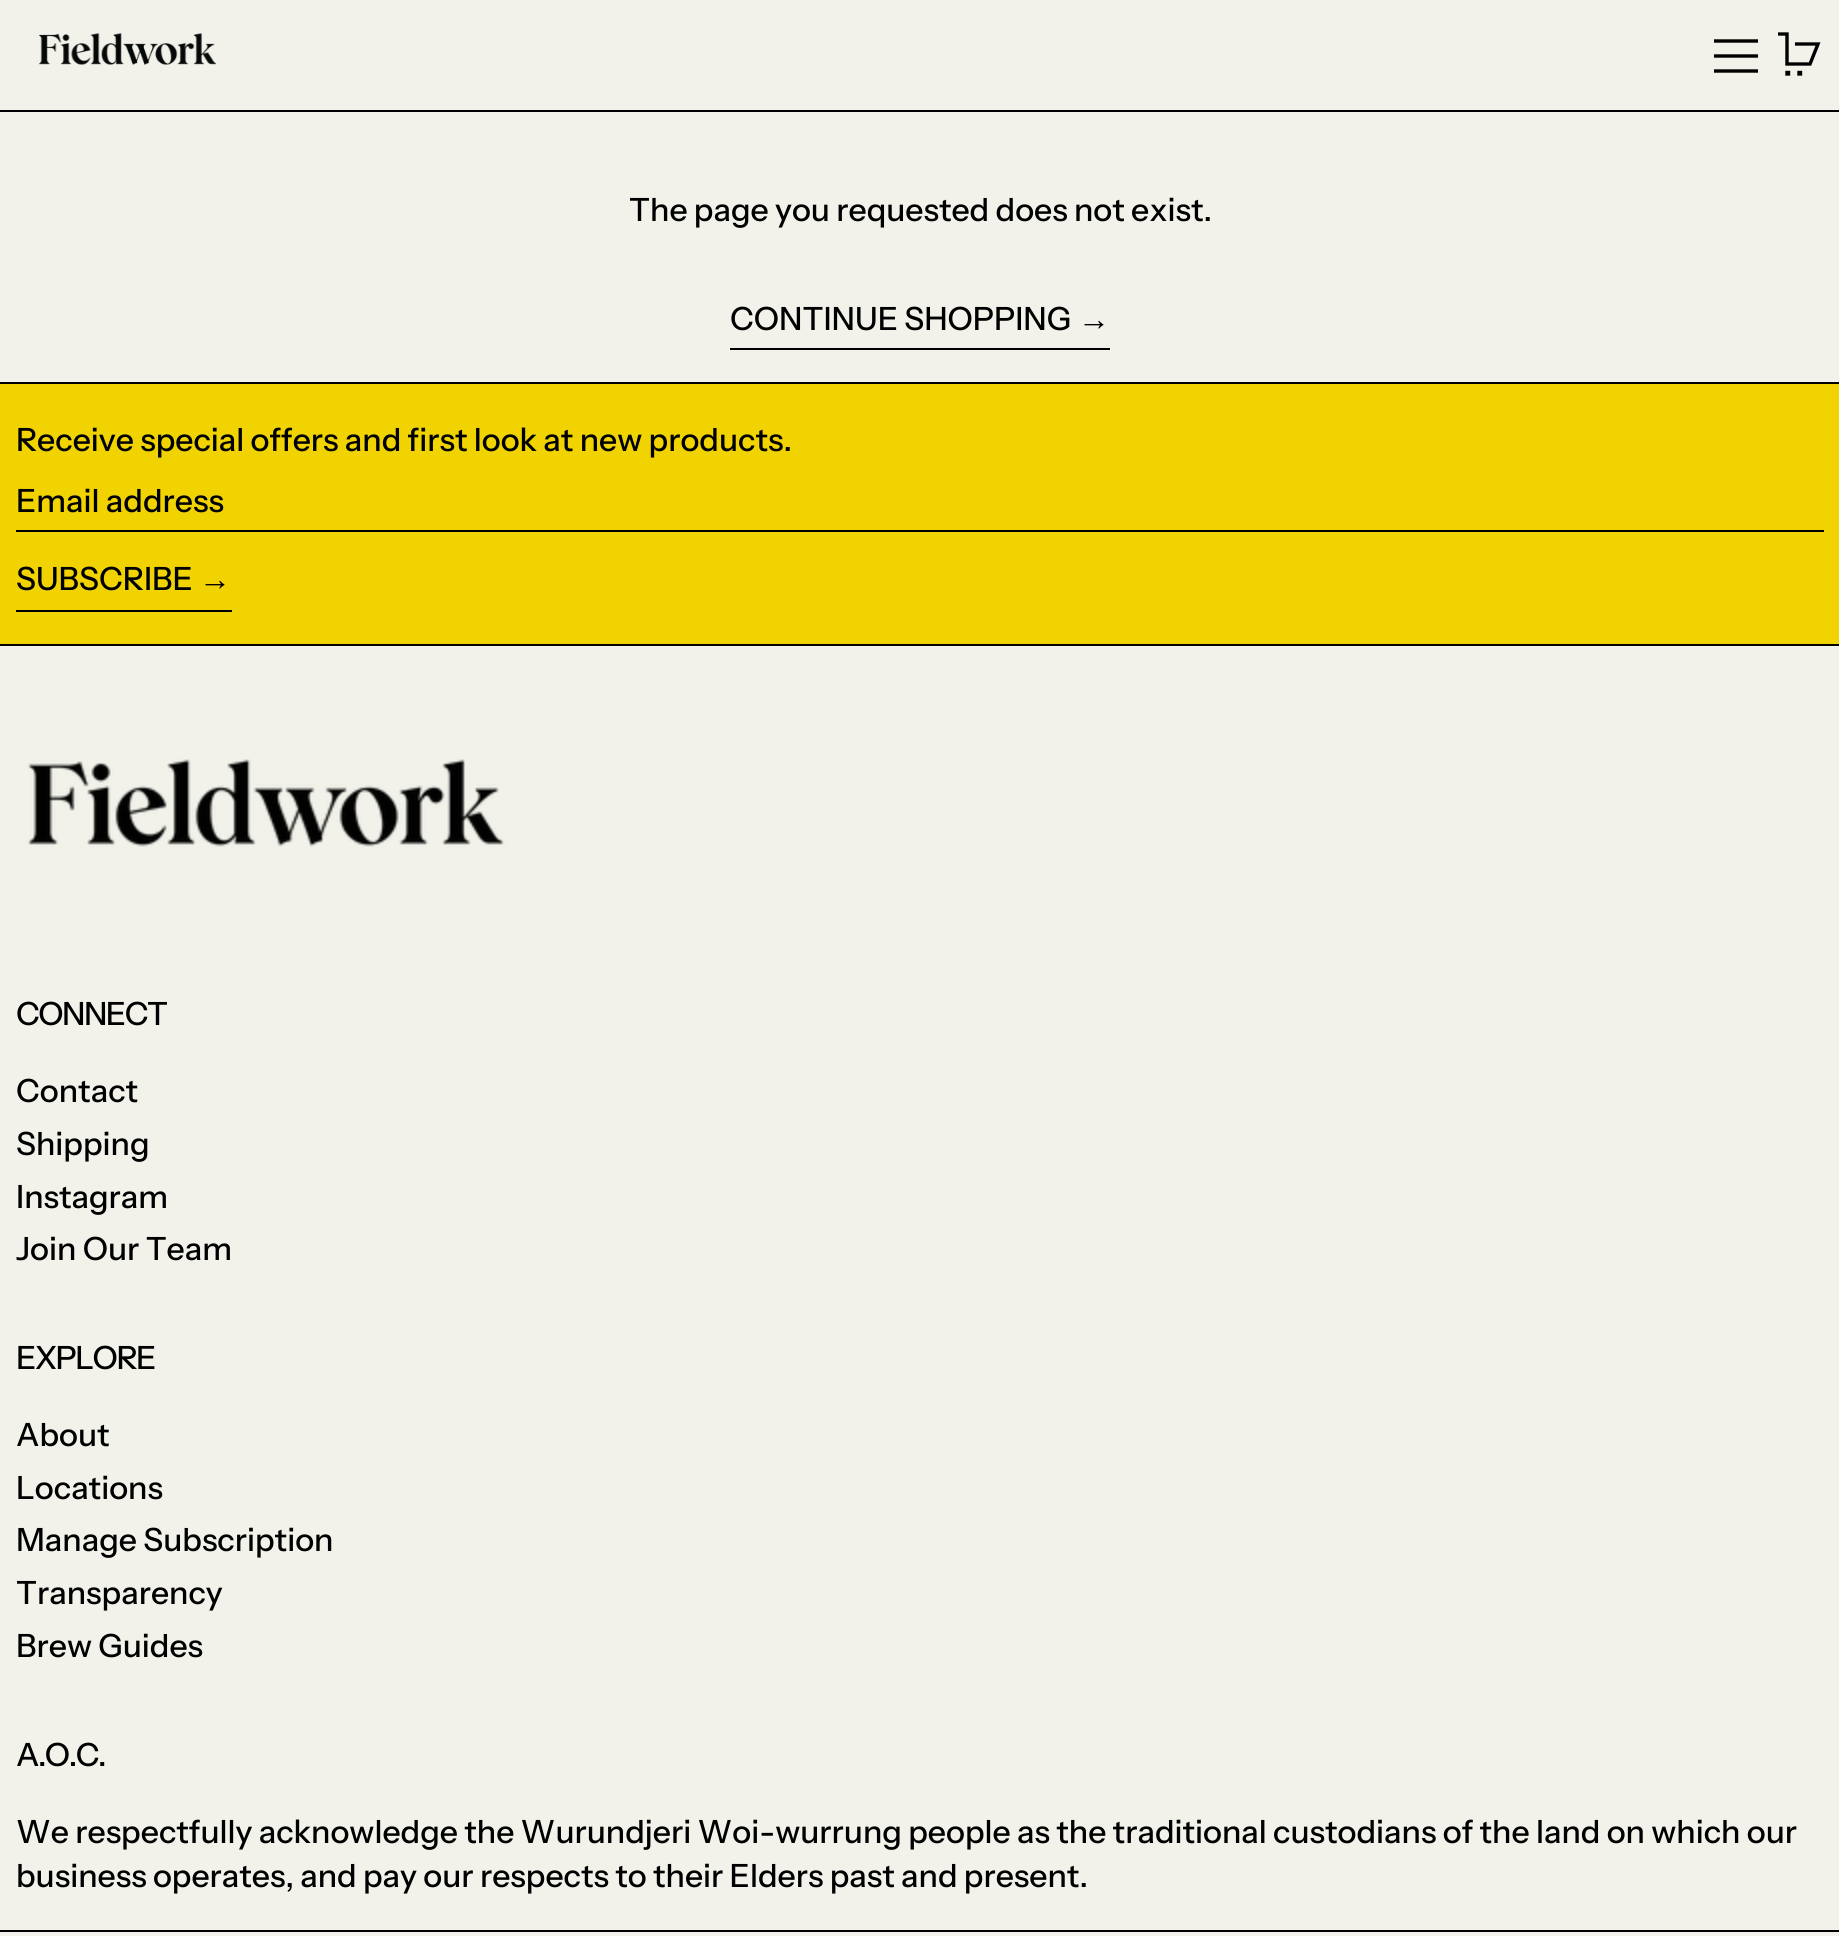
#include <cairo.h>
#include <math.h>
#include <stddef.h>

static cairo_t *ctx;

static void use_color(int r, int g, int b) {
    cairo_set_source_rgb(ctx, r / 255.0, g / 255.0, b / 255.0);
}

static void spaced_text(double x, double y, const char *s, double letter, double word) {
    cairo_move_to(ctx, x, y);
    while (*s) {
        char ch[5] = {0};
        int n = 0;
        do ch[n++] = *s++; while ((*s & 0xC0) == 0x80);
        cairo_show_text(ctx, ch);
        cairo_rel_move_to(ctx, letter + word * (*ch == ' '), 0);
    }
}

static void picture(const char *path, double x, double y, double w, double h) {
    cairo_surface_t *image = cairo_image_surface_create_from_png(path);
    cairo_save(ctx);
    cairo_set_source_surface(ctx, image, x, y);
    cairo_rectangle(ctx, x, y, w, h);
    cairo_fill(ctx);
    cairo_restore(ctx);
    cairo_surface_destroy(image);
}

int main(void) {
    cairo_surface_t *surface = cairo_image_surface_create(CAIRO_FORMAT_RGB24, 1839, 1936);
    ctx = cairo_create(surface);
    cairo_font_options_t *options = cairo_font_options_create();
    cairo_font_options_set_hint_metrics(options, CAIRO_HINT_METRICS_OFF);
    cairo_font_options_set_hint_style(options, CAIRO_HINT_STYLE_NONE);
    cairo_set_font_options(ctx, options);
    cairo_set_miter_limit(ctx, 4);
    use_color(242, 242, 235);
    cairo_paint(ctx);
    use_color(0, 0, 0);
    cairo_rectangle(ctx, 0, 110, 1839, 2);
    cairo_fill(ctx);
    picture("img1.png", 39, 33, 177, 32);
    cairo_new_path(ctx);
    cairo_move_to(ctx, 1714, 41);
    cairo_line_to(ctx, 1758, 41);
    cairo_move_to(ctx, 1714, 56);
    cairo_line_to(ctx, 1758, 56);
    cairo_move_to(ctx, 1714, 71);
    cairo_line_to(ctx, 1758, 71);
    cairo_set_line_width(ctx, 3.4);
    cairo_stroke(ctx);
    cairo_new_path(ctx);
    cairo_move_to(ctx, 1778, 34);
    cairo_line_to(ctx, 1787, 34);
    cairo_line_to(ctx, 1787, 64);
    cairo_line_to(ctx, 1810, 64);
    cairo_line_to(ctx, 1818, 44);
    cairo_line_to(ctx, 1795, 44);
    cairo_move_to(ctx, 1787, 74);
    cairo_line_to(ctx, 1787, 72.5);
    cairo_line_to(ctx, 1788.5, 72.5);
    cairo_line_to(ctx, 1788.5, 74);
    cairo_close_path(ctx);
    cairo_move_to(ctx, 1799, 74);
    cairo_line_to(ctx, 1799, 72.5);
    cairo_line_to(ctx, 1800.5, 72.5);
    cairo_line_to(ctx, 1800.5, 74);
    cairo_close_path(ctx);
    cairo_stroke(ctx);
    cairo_rectangle(ctx, 0, 382, 1839, 2);
    cairo_fill(ctx);
    cairo_select_font_face(ctx, "Instrument Sans Medium", CAIRO_FONT_SLANT_NORMAL, CAIRO_FONT_WEIGHT_NORMAL);
    cairo_set_font_size(ctx, 32);
    cairo_move_to(ctx, 629, 221);
    cairo_show_text(ctx, "The page you requested does not exist.");
    cairo_rectangle(ctx, 730, 348, 380, 2);
    cairo_fill(ctx);
    cairo_move_to(ctx, 730, 330);
    cairo_show_text(ctx, "CONTINUE SHOPPING");
    cairo_select_font_face(ctx, "Liberation Sans", CAIRO_FONT_SLANT_NORMAL, CAIRO_FONT_WEIGHT_NORMAL);
    cairo_move_to(ctx, 1078, 330);
    cairo_show_text(ctx, "→");
    use_color(241, 211, 2);
    cairo_rectangle(ctx, 0, 384, 1839, 260);
    cairo_fill(ctx);
    use_color(0, 0, 0);
    cairo_rectangle(ctx, 0, 644, 1839, 2);
    cairo_fill(ctx);
    cairo_select_font_face(ctx, "Instrument Sans Medium", CAIRO_FONT_SLANT_NORMAL, CAIRO_FONT_WEIGHT_NORMAL);
    cairo_move_to(ctx, 16, 451);
    cairo_show_text(ctx, "Receive special offers and first look at new products.");
    cairo_rectangle(ctx, 16, 530, 1808, 2);
    cairo_fill(ctx);
    cairo_move_to(ctx, 16, 512);
    cairo_show_text(ctx, "Email address");
    cairo_rectangle(ctx, 16, 610, 216, 2);
    cairo_fill(ctx);
    cairo_move_to(ctx, 16, 590);
    cairo_show_text(ctx, "SUBSCRIBE");
    cairo_select_font_face(ctx, "Liberation Sans", CAIRO_FONT_SLANT_NORMAL, CAIRO_FONT_WEIGHT_NORMAL);
    cairo_move_to(ctx, 199, 590);
    cairo_show_text(ctx, "→");
    cairo_rectangle(ctx, 0, 1930, 1839, 2);
    cairo_fill(ctx);
    picture("img2.png", 27, 759, 478, 88);
    cairo_select_font_face(ctx, "Instrument Sans Medium", CAIRO_FONT_SLANT_NORMAL, CAIRO_FONT_WEIGHT_NORMAL);
    spaced_text(16, 1025, "CONNECT", -1.5, 0);
    cairo_move_to(ctx, 16, 1102);
    cairo_show_text(ctx, "Contact");
    cairo_move_to(ctx, 16, 1155);
    cairo_show_text(ctx, "Shipping");
    cairo_move_to(ctx, 16, 1208);
    cairo_show_text(ctx, "Instagram");
    cairo_move_to(ctx, 16, 1260);
    cairo_show_text(ctx, "Join Our Team");
    spaced_text(16, 1369, "EXPLORE", -1.5, 0);
    cairo_move_to(ctx, 16, 1446);
    cairo_show_text(ctx, "About");
    cairo_move_to(ctx, 16, 1499);
    cairo_show_text(ctx, "Locations");
    cairo_move_to(ctx, 16, 1551);
    cairo_show_text(ctx, "Manage Subscription");
    cairo_move_to(ctx, 16, 1604);
    cairo_show_text(ctx, "Transparency");
    cairo_move_to(ctx, 16, 1657);
    cairo_show_text(ctx, "Brew Guides");
    spaced_text(16, 1766, "A.O.C.", -1.5, 0);
    cairo_move_to(ctx, 16, 1843);
    cairo_show_text(ctx, "We respectfully acknowledge the Wurundjeri Woi-wurrung people as the traditional custodians of the land on which our");
    cairo_move_to(ctx, 16, 1887);
    cairo_show_text(ctx, "business operates, and pay our respects to their Elders past and present.");
    cairo_surface_write_to_png(surface, "result.png");
    cairo_font_options_destroy(options);
    cairo_destroy(ctx);
    cairo_surface_destroy(surface);
    return 0;
}
